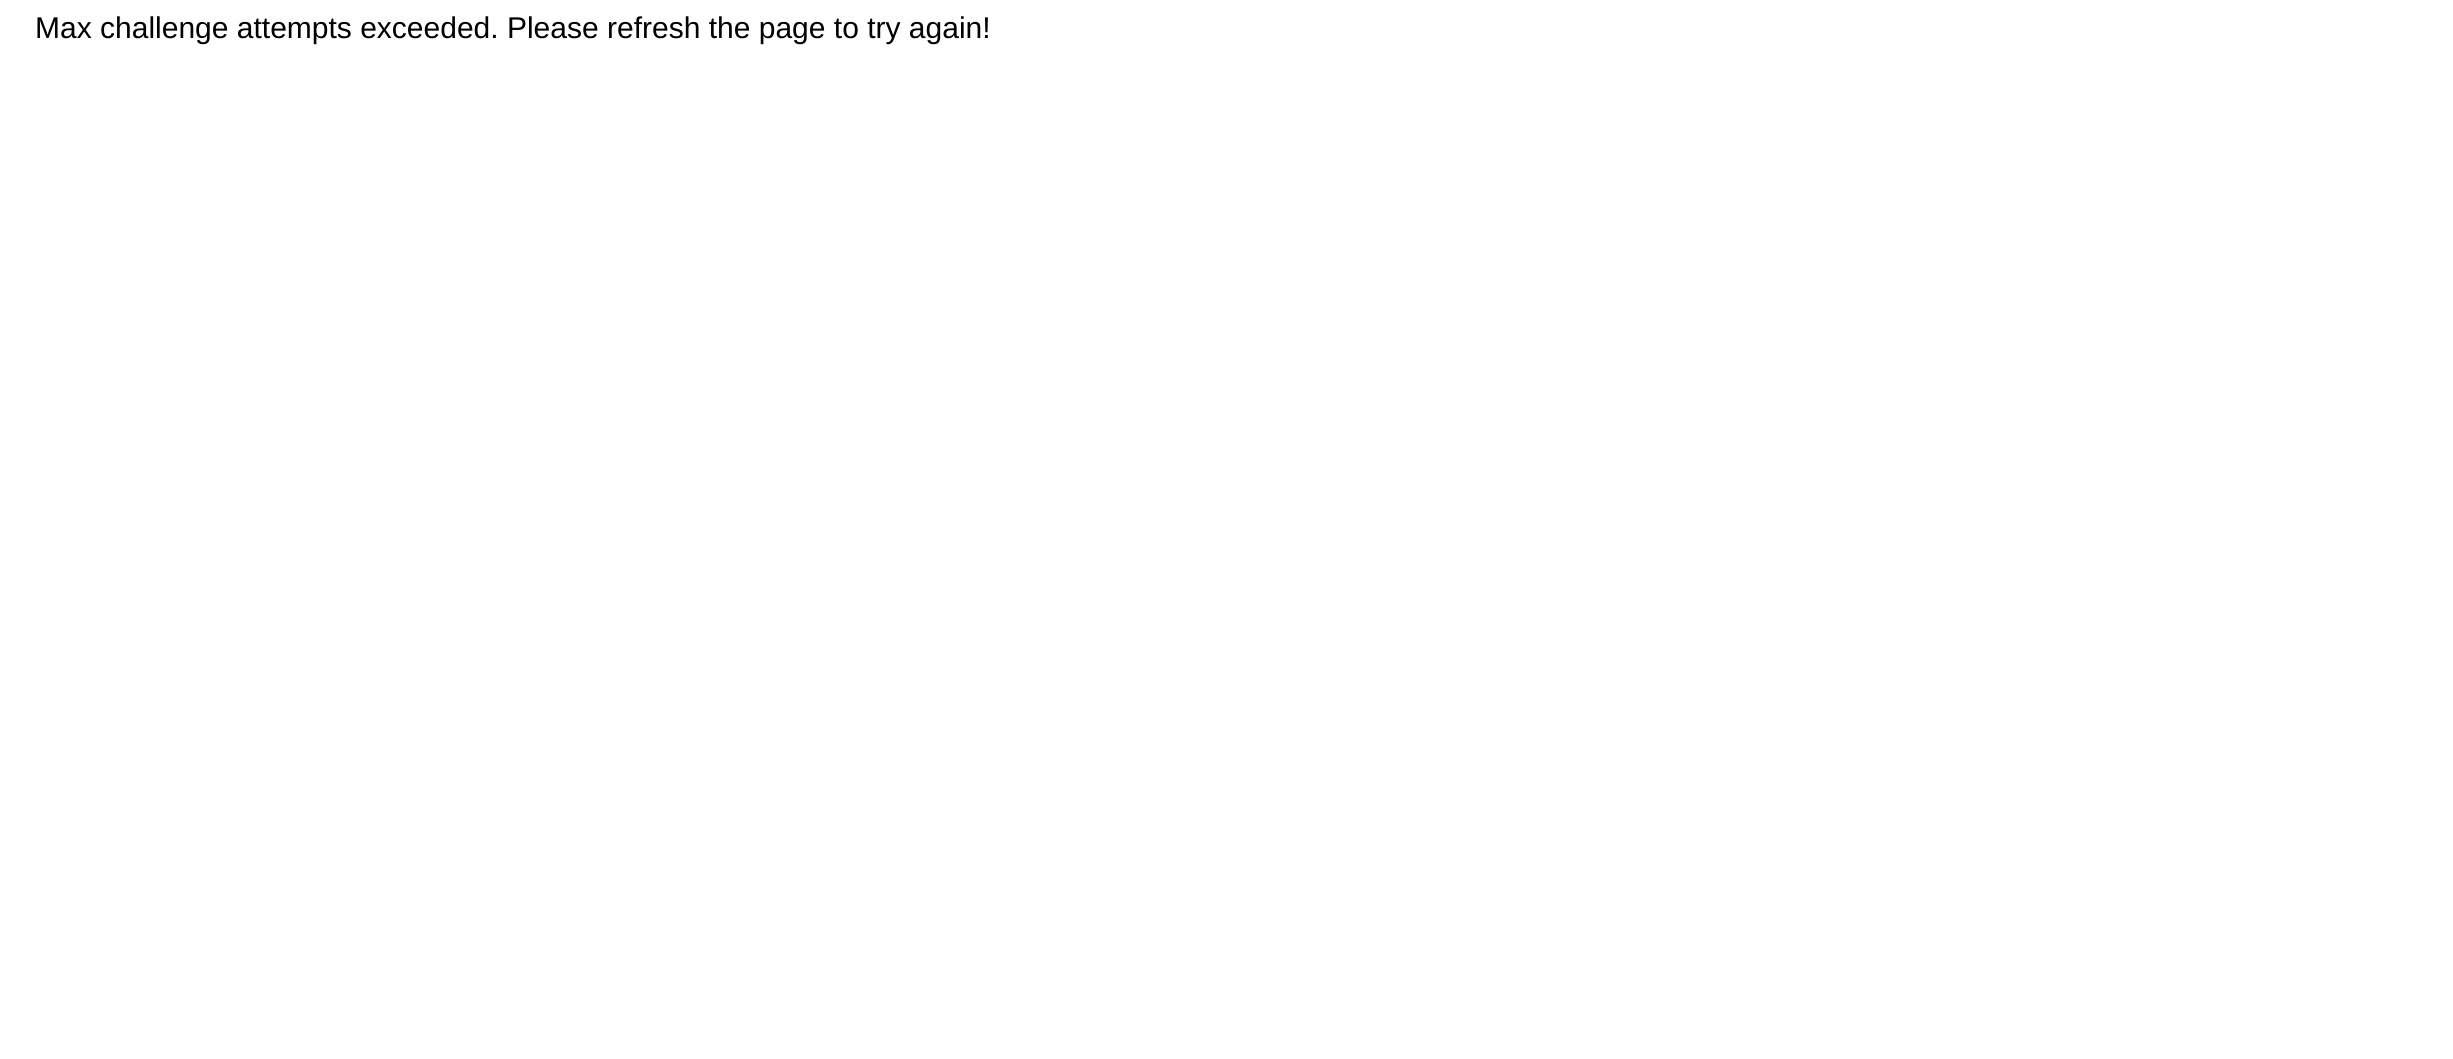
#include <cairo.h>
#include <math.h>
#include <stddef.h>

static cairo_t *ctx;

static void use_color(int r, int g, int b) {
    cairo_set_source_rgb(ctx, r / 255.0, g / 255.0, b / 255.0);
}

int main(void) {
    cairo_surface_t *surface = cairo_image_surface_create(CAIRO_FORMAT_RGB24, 2453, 1059);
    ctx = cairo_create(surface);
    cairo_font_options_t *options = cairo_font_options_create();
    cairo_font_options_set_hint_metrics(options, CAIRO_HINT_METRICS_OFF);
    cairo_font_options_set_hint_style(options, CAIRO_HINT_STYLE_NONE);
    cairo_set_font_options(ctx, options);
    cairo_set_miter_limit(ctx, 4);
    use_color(255, 255, 255);
    cairo_paint(ctx);
    cairo_select_font_face(ctx, "Liberation Sans", CAIRO_FONT_SLANT_NORMAL, CAIRO_FONT_WEIGHT_NORMAL);
    cairo_set_font_size(ctx, 30);
    use_color(0, 0, 0);
    cairo_move_to(ctx, 35, 38);
    cairo_show_text(ctx, "Max challenge attempts exceeded. Please refresh the page to try again!");
    cairo_surface_write_to_png(surface, "result.png");
    cairo_font_options_destroy(options);
    cairo_destroy(ctx);
    cairo_surface_destroy(surface);
    return 0;
}
